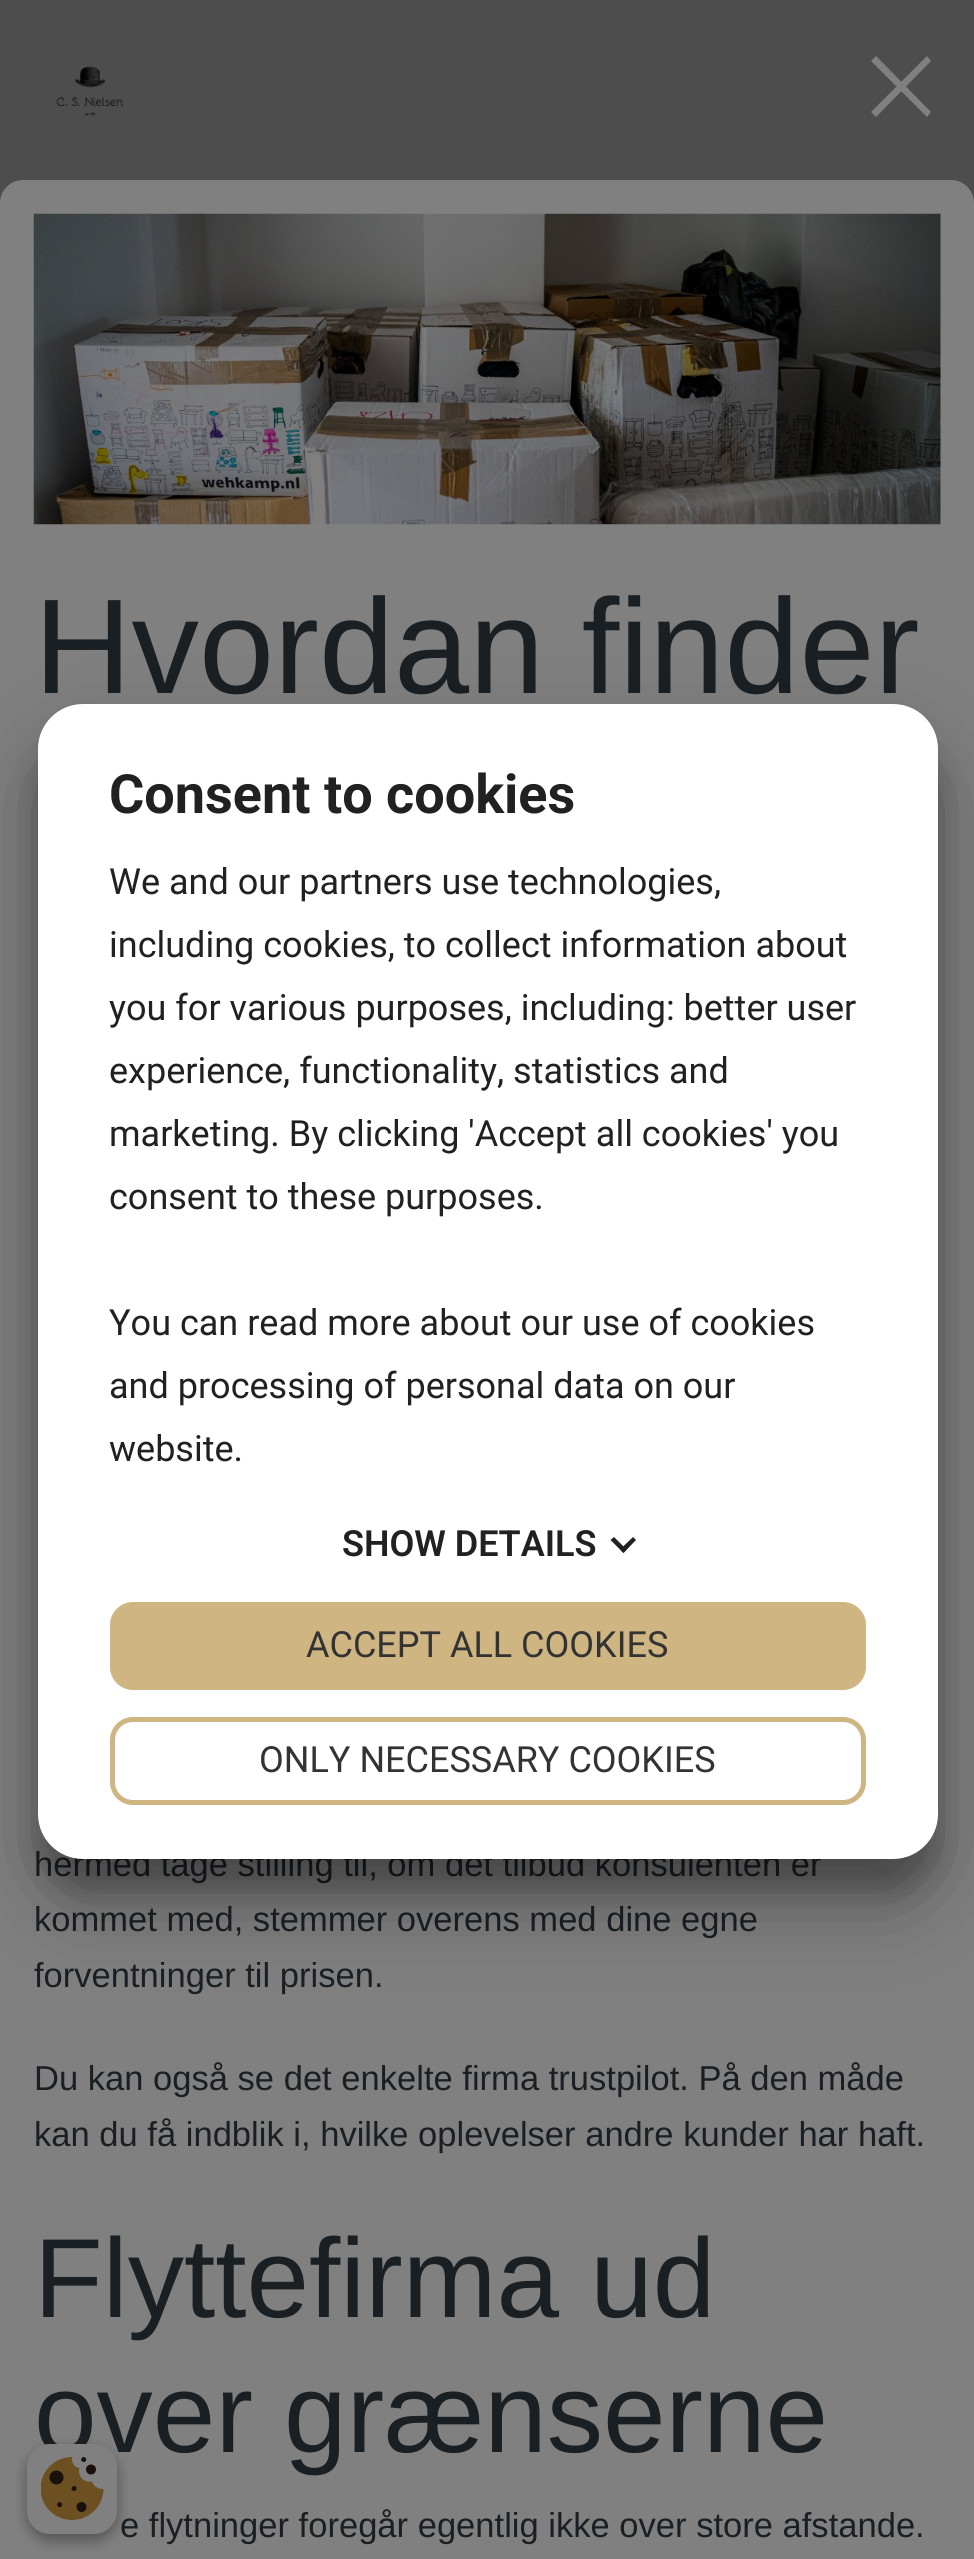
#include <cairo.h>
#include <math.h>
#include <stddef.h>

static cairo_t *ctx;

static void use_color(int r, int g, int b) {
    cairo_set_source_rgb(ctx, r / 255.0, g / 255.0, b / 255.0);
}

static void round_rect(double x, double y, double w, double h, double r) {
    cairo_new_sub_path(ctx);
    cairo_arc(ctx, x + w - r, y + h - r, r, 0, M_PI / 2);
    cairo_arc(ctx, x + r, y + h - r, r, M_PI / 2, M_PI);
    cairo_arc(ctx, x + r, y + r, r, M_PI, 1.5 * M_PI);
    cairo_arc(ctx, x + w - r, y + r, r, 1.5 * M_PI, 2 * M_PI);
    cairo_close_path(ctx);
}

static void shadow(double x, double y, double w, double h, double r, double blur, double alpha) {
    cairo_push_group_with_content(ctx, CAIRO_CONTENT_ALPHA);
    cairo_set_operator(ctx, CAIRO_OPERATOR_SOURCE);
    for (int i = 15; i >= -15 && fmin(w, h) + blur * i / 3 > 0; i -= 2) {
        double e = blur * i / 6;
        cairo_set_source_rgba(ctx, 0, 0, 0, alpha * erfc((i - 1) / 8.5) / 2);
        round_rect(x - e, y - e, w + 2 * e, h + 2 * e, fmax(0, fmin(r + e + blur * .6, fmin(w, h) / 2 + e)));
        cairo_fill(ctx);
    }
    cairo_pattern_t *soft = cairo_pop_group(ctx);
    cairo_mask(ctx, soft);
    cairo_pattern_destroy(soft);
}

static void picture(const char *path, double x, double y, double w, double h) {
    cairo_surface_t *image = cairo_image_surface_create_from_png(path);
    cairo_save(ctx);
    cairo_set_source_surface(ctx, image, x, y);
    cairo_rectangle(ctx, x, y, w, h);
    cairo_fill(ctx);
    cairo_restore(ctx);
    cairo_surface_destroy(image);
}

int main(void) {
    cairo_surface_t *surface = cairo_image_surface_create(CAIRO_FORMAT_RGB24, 974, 2559);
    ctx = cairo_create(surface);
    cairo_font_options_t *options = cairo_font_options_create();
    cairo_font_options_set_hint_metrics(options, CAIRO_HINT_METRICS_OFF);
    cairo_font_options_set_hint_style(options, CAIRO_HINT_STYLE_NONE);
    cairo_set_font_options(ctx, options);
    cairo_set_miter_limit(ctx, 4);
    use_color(77, 77, 77);
    cairo_paint(ctx);
    picture("img1.png", 56, 66, 68, 50);
    use_color(128, 128, 128);
    cairo_new_path(ctx);
    cairo_move_to(ctx, 876, 56);
    cairo_line_to(ctx, 931, 112);
    cairo_line_to(ctx, 927, 117);
    cairo_line_to(ctx, 871, 61);
    cairo_close_path(ctx);
    cairo_fill(ctx);
    cairo_new_path(ctx);
    cairo_move_to(ctx, 871, 112);
    cairo_line_to(ctx, 927, 56);
    cairo_line_to(ctx, 931, 61);
    cairo_line_to(ctx, 876, 117);
    cairo_close_path(ctx);
    cairo_fill(ctx);
    round_rect(0, 180, 974, 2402, 23);
    cairo_fill(ctx);
    picture("img2.png", 33, 213, 908, 312);
    cairo_select_font_face(ctx, "Liberation Sans", CAIRO_FONT_SLANT_NORMAL, CAIRO_FONT_WEIGHT_NORMAL);
    cairo_set_font_size(ctx, 135);
    use_color(26, 31, 36);
    cairo_move_to(ctx, 34, 693);
    cairo_show_text(ctx, "Hvordan finder");
    cairo_set_font_size(ctx, 34.55);
    cairo_move_to(ctx, 34, 1876);
    cairo_show_text(ctx, "hermed tage stilling til, om det tilbud konsulenten er");
    cairo_move_to(ctx, 34, 1931);
    cairo_show_text(ctx, "kommet med, stemmer overens med dine egne");
    cairo_move_to(ctx, 34, 1987);
    cairo_show_text(ctx, "forventninger til prisen.");
    cairo_move_to(ctx, 34, 2090);
    cairo_show_text(ctx, "Du kan også se det enkelte firma trustpilot. På den måde");
    cairo_move_to(ctx, 34, 2146);
    cairo_show_text(ctx, "kan du få indblik i, hvilke oplevelser andre kunder har haft.");
    cairo_set_font_size(ctx, 112.5);
    cairo_move_to(ctx, 34, 2317);
    cairo_show_text(ctx, "Flyttefirma ud");
    cairo_move_to(ctx, 34, 2452);
    cairo_show_text(ctx, "over grænserne");
    cairo_set_font_size(ctx, 34.55);
    cairo_move_to(ctx, 120, 2537);
    cairo_show_text(ctx, "e flytninger foregår egentlig ikke over store afstande.");
    use_color(0, 0, 0);
    shadow(38, 738, 900, 1154, 45, 13.5, 0.22);
    shadow(38, 747, 900, 1154, 45, 43, 0.3);
    use_color(255, 255, 255);
    round_rect(38, 704, 900, 1155, 45);
    cairo_fill(ctx);
    cairo_select_font_face(ctx, "Roboto", CAIRO_FONT_SLANT_NORMAL, CAIRO_FONT_WEIGHT_BOLD);
    cairo_set_font_size(ctx, 54);
    use_color(33, 33, 33);
    cairo_move_to(ctx, 109, 813);
    cairo_show_text(ctx, "Consent to cookies");
    cairo_select_font_face(ctx, "Roboto", CAIRO_FONT_SLANT_NORMAL, CAIRO_FONT_WEIGHT_NORMAL);
    cairo_set_font_size(ctx, 36);
    cairo_move_to(ctx, 109, 894);
    cairo_show_text(ctx, "We and our partners use technologies,");
    cairo_move_to(ctx, 109, 957);
    cairo_show_text(ctx, "including cookies, to collect information about");
    cairo_move_to(ctx, 109, 1020);
    cairo_show_text(ctx, "you for various purposes, including: better user");
    cairo_move_to(ctx, 109, 1083);
    cairo_show_text(ctx, "experience, functionality, statistics and");
    cairo_move_to(ctx, 109, 1146);
    cairo_show_text(ctx, "marketing. By clicking 'Accept all cookies' you");
    cairo_move_to(ctx, 109, 1209);
    cairo_show_text(ctx, "consent to these purposes.");
    cairo_move_to(ctx, 109, 1335);
    cairo_show_text(ctx, "You can read more about our use of cookies");
    cairo_move_to(ctx, 109, 1398);
    cairo_show_text(ctx, "and processing of personal data on our");
    cairo_move_to(ctx, 109, 1461);
    cairo_show_text(ctx, "website.");
    cairo_select_font_face(ctx, "Roboto SemiBold", CAIRO_FONT_SLANT_NORMAL, CAIRO_FONT_WEIGHT_NORMAL);
    cairo_move_to(ctx, 342, 1556);
    cairo_show_text(ctx, "SHOW DETAILS");
    cairo_new_path(ctx);
    cairo_move_to(ctx, 633, 1537);
    cairo_line_to(ctx, 636, 1540);
    cairo_line_to(ctx, 623.5, 1553);
    cairo_line_to(ctx, 620, 1549.5);
    cairo_close_path(ctx);
    cairo_fill(ctx);
    cairo_new_path(ctx);
    cairo_move_to(ctx, 614, 1537);
    cairo_line_to(ctx, 626.5, 1549.5);
    cairo_line_to(ctx, 623.5, 1553);
    cairo_line_to(ctx, 610.5, 1540);
    cairo_close_path(ctx);
    cairo_fill(ctx);
    use_color(206, 181, 130);
    round_rect(112.5, 1604.5, 751, 83, 20.5);
    cairo_fill_preserve(ctx);
    cairo_set_line_width(ctx, 5);
    cairo_stroke(ctx);
    cairo_select_font_face(ctx, "Roboto", CAIRO_FONT_SLANT_NORMAL, CAIRO_FONT_WEIGHT_NORMAL);
    use_color(51, 51, 51);
    cairo_move_to(ctx, 306, 1657);
    cairo_show_text(ctx, "ACCEPT ALL COOKIES");
    round_rect(112.5, 1719.5, 751, 83, 20.5);
    use_color(206, 181, 130);
    cairo_stroke(ctx);
    use_color(51, 51, 51);
    cairo_move_to(ctx, 259, 1772);
    cairo_show_text(ctx, "ONLY NECESSARY COOKIES");
    use_color(0, 0, 0);
    shadow(27, 2450, 90, 90, 23, 7, 0.23);
    shadow(27, 2450, 90, 90, 23, 7, 0.16);
    use_color(128, 128, 128);
    round_rect(27, 2444, 90, 90, 23);
    cairo_fill(ctx);
    picture("img3.png", 41, 2457, 63, 63);
    cairo_surface_write_to_png(surface, "result.png");
    cairo_font_options_destroy(options);
    cairo_destroy(ctx);
    cairo_surface_destroy(surface);
    return 0;
}
